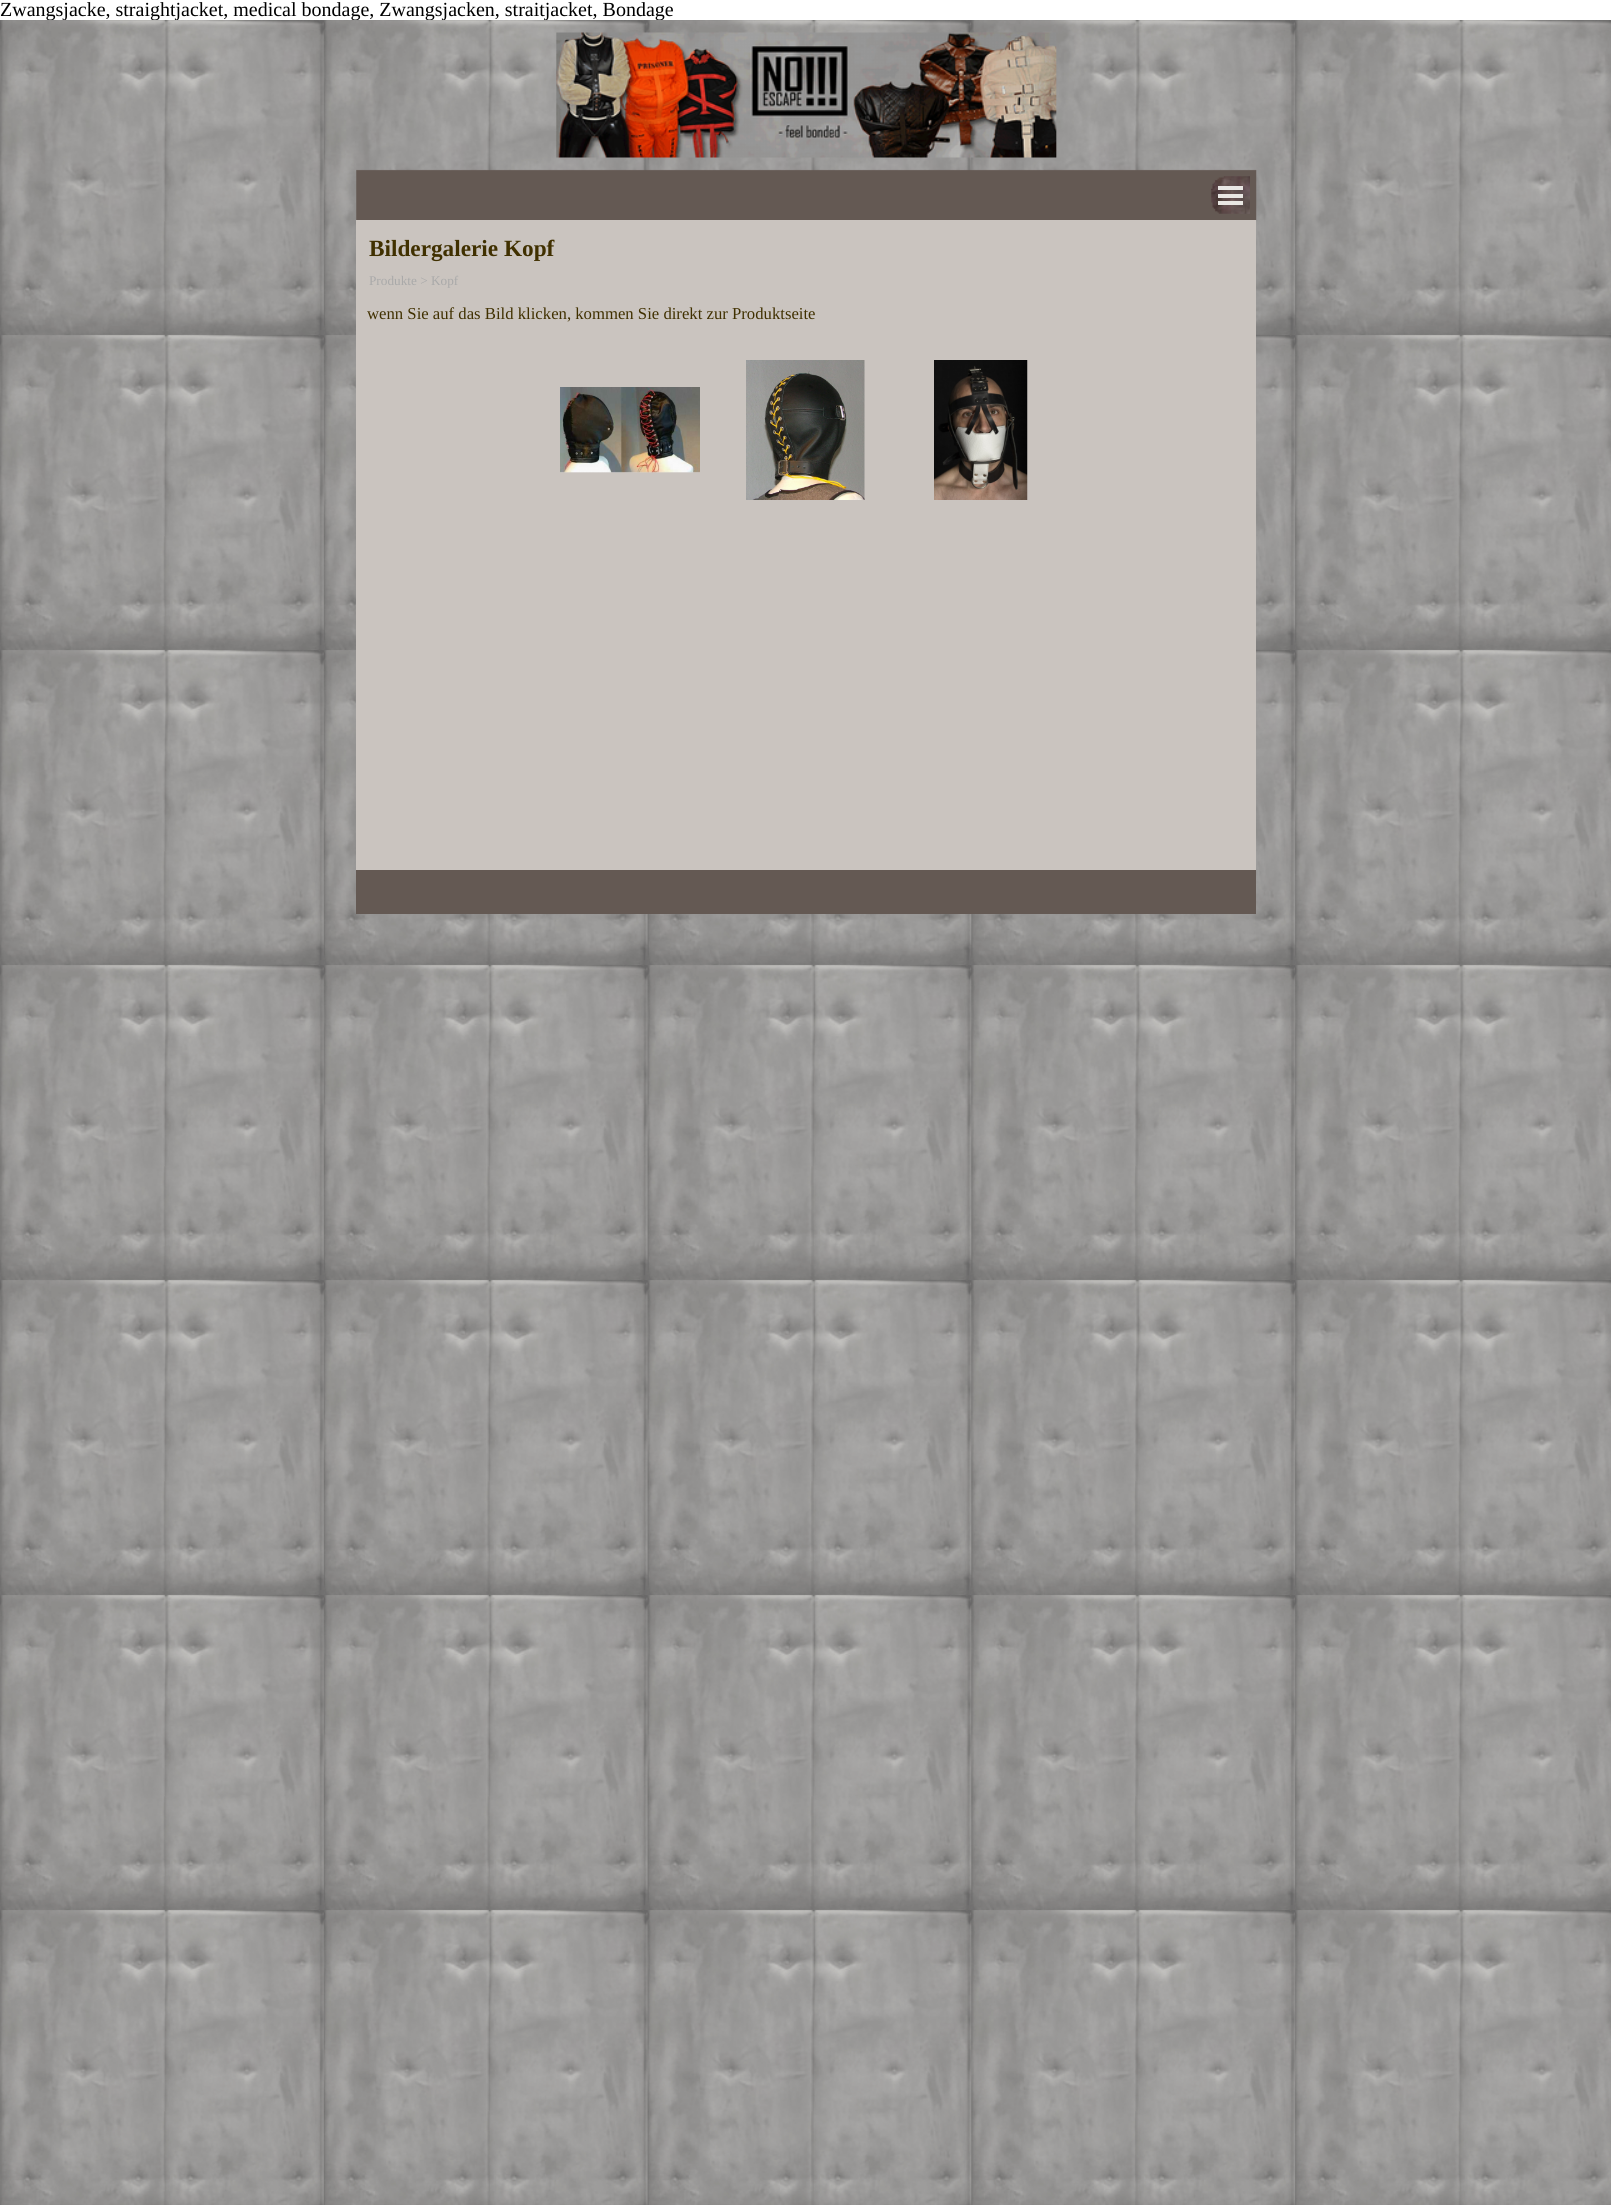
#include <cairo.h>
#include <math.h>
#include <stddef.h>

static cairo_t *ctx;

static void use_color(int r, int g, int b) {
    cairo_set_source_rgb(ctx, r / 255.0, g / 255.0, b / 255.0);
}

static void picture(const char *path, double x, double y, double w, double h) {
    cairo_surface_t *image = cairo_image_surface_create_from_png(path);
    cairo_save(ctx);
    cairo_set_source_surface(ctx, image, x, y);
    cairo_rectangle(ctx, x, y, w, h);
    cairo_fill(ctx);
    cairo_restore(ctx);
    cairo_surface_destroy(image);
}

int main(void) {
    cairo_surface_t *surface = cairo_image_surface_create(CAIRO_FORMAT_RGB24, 1611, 2205);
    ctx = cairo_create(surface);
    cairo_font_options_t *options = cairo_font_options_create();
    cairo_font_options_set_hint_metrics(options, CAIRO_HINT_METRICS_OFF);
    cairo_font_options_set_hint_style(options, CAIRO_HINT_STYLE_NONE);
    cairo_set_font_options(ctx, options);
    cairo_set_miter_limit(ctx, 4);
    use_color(255, 255, 255);
    cairo_paint(ctx);
    cairo_select_font_face(ctx, "Liberation Serif", CAIRO_FONT_SLANT_NORMAL, CAIRO_FONT_WEIGHT_NORMAL);
    cairo_set_font_size(ctx, 20);
    use_color(0, 0, 0);
    cairo_move_to(ctx, 0, 16);
    cairo_show_text(ctx, "Zwangsjacke, straightjacket, medical bondage, Zwangsjacken, straitjacket, Bondage");
    picture("img1.png", 0, 20, 1611, 2185);
    picture("img2.png", 356, 32, 901, 188);
    picture("img3.png", 1211, 176, 39, 38);
    use_color(233, 231, 228);
    cairo_rectangle(ctx, 1218, 186, 25, 4);
    cairo_fill(ctx);
    cairo_rectangle(ctx, 1218, 194, 25, 4);
    cairo_fill(ctx);
    cairo_rectangle(ctx, 1218, 201, 25, 4);
    cairo_fill(ctx);
    use_color(202, 196, 191);
    cairo_rectangle(ctx, 356, 220, 900, 650);
    cairo_fill(ctx);
    cairo_select_font_face(ctx, "Liberation Serif", CAIRO_FONT_SLANT_NORMAL, CAIRO_FONT_WEIGHT_BOLD);
    cairo_set_font_size(ctx, 23.25);
    use_color(64, 48, 0);
    cairo_move_to(ctx, 369, 256);
    cairo_show_text(ctx, "Bildergalerie Kopf");
    cairo_select_font_face(ctx, "Liberation Serif", CAIRO_FONT_SLANT_NORMAL, CAIRO_FONT_WEIGHT_NORMAL);
    cairo_set_font_size(ctx, 13.25);
    use_color(169, 169, 169);
    cairo_move_to(ctx, 369, 285);
    cairo_show_text(ctx, "Produkte > Kopf");
    cairo_set_font_size(ctx, 16.7);
    use_color(64, 48, 0);
    cairo_move_to(ctx, 367, 319);
    cairo_show_text(ctx, "wenn Sie auf das Bild klicken, kommen Sie direkt zur Produktseite");
    picture("img4.png", 560, 387, 140, 86);
    picture("img5.png", 746, 360, 119, 140);
    picture("img6.png", 934, 360, 94, 140);
    use_color(100, 89, 83);
    cairo_rectangle(ctx, 356, 870, 900, 44);
    cairo_fill(ctx);
    cairo_surface_write_to_png(surface, "result.png");
    cairo_font_options_destroy(options);
    cairo_destroy(ctx);
    cairo_surface_destroy(surface);
    return 0;
}
